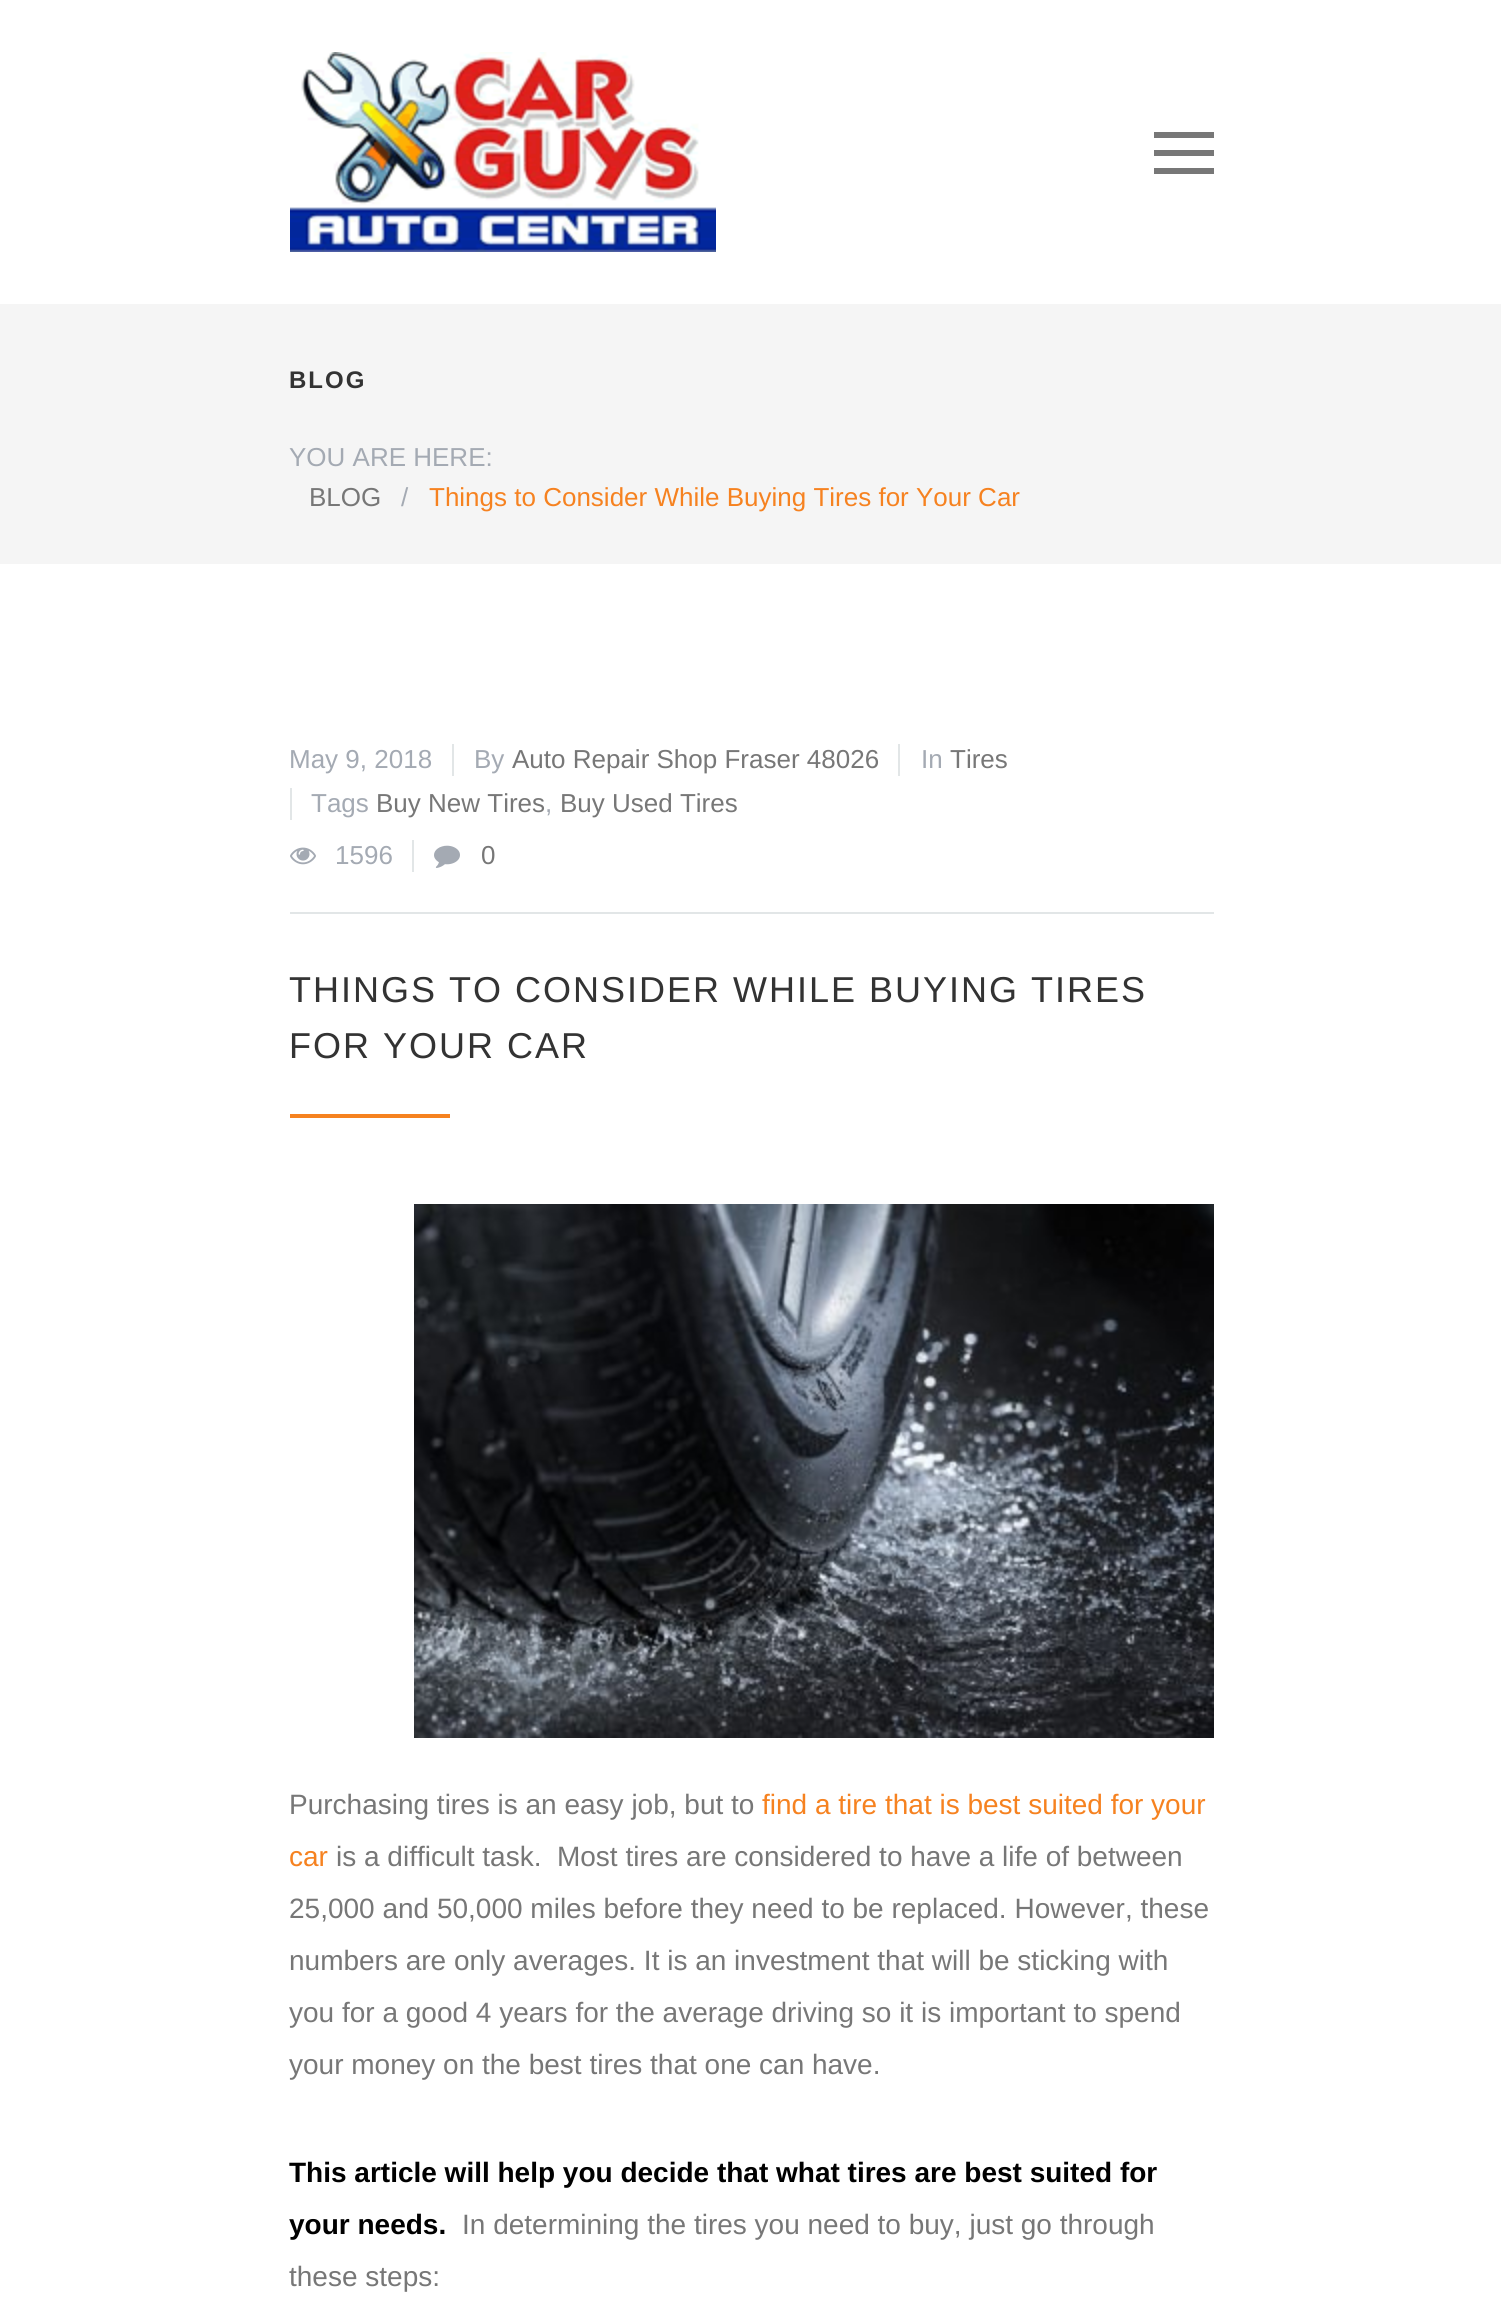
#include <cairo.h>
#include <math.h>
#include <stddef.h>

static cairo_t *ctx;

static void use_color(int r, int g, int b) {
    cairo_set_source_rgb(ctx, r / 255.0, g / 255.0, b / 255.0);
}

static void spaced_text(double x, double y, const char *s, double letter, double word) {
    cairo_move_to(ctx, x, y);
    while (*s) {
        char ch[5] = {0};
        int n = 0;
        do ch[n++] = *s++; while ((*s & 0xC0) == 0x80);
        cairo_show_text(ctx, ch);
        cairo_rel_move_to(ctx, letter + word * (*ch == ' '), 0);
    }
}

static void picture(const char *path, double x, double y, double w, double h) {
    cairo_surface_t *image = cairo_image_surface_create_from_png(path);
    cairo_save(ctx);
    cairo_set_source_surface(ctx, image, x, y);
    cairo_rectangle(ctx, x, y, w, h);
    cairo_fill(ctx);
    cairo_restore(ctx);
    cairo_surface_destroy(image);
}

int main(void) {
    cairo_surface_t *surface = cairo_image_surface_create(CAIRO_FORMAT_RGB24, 1501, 2306);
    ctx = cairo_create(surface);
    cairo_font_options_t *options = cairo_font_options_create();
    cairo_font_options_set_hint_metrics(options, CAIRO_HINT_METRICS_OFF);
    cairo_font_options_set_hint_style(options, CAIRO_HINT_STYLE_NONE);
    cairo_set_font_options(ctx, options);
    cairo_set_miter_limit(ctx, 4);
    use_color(255, 255, 255);
    cairo_paint(ctx);
    picture("img1.png", 290, 52, 426, 200);
    use_color(119, 119, 119);
    cairo_rectangle(ctx, 1154, 132, 60, 6);
    cairo_fill(ctx);
    cairo_rectangle(ctx, 1154, 150, 60, 6);
    cairo_fill(ctx);
    cairo_rectangle(ctx, 1154, 168, 60, 6);
    cairo_fill(ctx);
    use_color(245, 245, 245);
    cairo_rectangle(ctx, 0, 304, 1501, 260);
    cairo_fill(ctx);
    cairo_select_font_face(ctx, "Liberation Sans", CAIRO_FONT_SLANT_NORMAL, CAIRO_FONT_WEIGHT_BOLD);
    cairo_set_font_size(ctx, 24);
    use_color(51, 51, 51);
    spaced_text(289, 388, "BLOG", 2, 0);
    cairo_select_font_face(ctx, "Liberation Sans", CAIRO_FONT_SLANT_NORMAL, CAIRO_FONT_WEIGHT_NORMAL);
    cairo_set_font_size(ctx, 26);
    use_color(164, 170, 179);
    cairo_move_to(ctx, 289, 466);
    cairo_show_text(ctx, "YOU ARE HERE:");
    use_color(119, 119, 119);
    cairo_move_to(ctx, 309, 506);
    cairo_show_text(ctx, "BLOG");
    use_color(164, 170, 179);
    cairo_move_to(ctx, 401, 506);
    cairo_show_text(ctx, "/");
    use_color(246, 130, 32);
    cairo_move_to(ctx, 429, 506);
    cairo_show_text(ctx, "Things to Consider While Buying Tires for Your Car");
    use_color(226, 230, 231);
    cairo_rectangle(ctx, 290, 912, 924, 2);
    cairo_fill(ctx);
    use_color(164, 170, 179);
    cairo_move_to(ctx, 289, 768);
    cairo_show_text(ctx, "May 9, 2018");
    use_color(226, 230, 231);
    cairo_rectangle(ctx, 452, 744, 2, 32);
    cairo_fill(ctx);
    use_color(164, 170, 179);
    cairo_move_to(ctx, 474, 768);
    cairo_show_text(ctx, "By");
    use_color(119, 119, 119);
    cairo_move_to(ctx, 512, 768);
    cairo_show_text(ctx, "Auto Repair Shop Fraser 48026");
    use_color(226, 230, 231);
    cairo_rectangle(ctx, 898, 744, 2, 32);
    cairo_fill(ctx);
    use_color(164, 170, 179);
    cairo_move_to(ctx, 921, 768);
    cairo_show_text(ctx, "In");
    use_color(119, 119, 119);
    cairo_move_to(ctx, 950, 768);
    cairo_show_text(ctx, "Tires");
    use_color(226, 230, 231);
    cairo_rectangle(ctx, 290, 788, 2, 32);
    cairo_fill(ctx);
    use_color(164, 170, 179);
    cairo_move_to(ctx, 311, 812);
    cairo_show_text(ctx, "Tags");
    use_color(119, 119, 119);
    cairo_move_to(ctx, 376, 812);
    cairo_show_text(ctx, "Buy New Tires");
    use_color(164, 170, 179);
    cairo_move_to(ctx, 545, 812);
    cairo_show_text(ctx, ",");
    use_color(119, 119, 119);
    cairo_move_to(ctx, 560, 812);
    cairo_show_text(ctx, "Buy Used Tires");
    picture("img2.png", 290, 847, 26, 18);
    use_color(164, 170, 179);
    cairo_move_to(ctx, 335, 864);
    cairo_show_text(ctx, "1596");
    use_color(226, 230, 231);
    cairo_rectangle(ctx, 412, 840, 2, 32);
    cairo_fill(ctx);
    picture("img3.png", 434, 845, 26, 23);
    use_color(119, 119, 119);
    cairo_move_to(ctx, 481, 864);
    cairo_show_text(ctx, "0");
    cairo_set_font_size(ctx, 36);
    use_color(51, 51, 51);
    spaced_text(289, 1002, "THINGS TO CONSIDER WHILE BUYING TIRES", 2, 0);
    spaced_text(289, 1058, "FOR YOUR CAR", 2, 0);
    use_color(246, 130, 32);
    cairo_rectangle(ctx, 290, 1114, 160, 4);
    cairo_fill(ctx);
    picture("img4.png", 414, 1204, 800, 534);
    cairo_set_font_size(ctx, 28);
    use_color(119, 119, 119);
    cairo_move_to(ctx, 289, 1814);
    cairo_show_text(ctx, "Purchasing tires is an easy job, but to");
    use_color(246, 130, 32);
    cairo_move_to(ctx, 762, 1814);
    cairo_show_text(ctx, "find a tire that is best suited for your");
    cairo_move_to(ctx, 289, 1866);
    cairo_show_text(ctx, "car");
    use_color(119, 119, 119);
    cairo_move_to(ctx, 336, 1866);
    cairo_show_text(ctx, "is a difficult task.  Most tires are considered to have a life of between");
    cairo_move_to(ctx, 289, 1918);
    cairo_show_text(ctx, "25,000 and 50,000 miles before they need to be replaced. However, these");
    cairo_move_to(ctx, 289, 1970);
    cairo_show_text(ctx, "numbers are only averages. It is an investment that will be sticking with");
    cairo_move_to(ctx, 289, 2022);
    cairo_show_text(ctx, "you for a good 4 years for the average driving so it is important to spend");
    cairo_move_to(ctx, 289, 2074);
    cairo_show_text(ctx, "your money on the best tires that one can have.");
    cairo_select_font_face(ctx, "Liberation Sans", CAIRO_FONT_SLANT_NORMAL, CAIRO_FONT_WEIGHT_BOLD);
    use_color(0, 0, 0);
    cairo_move_to(ctx, 289, 2182);
    cairo_show_text(ctx, "This article will help you decide that what tires are best suited for");
    cairo_move_to(ctx, 289, 2234);
    cairo_show_text(ctx, "your needs.");
    cairo_select_font_face(ctx, "Liberation Sans", CAIRO_FONT_SLANT_NORMAL, CAIRO_FONT_WEIGHT_NORMAL);
    use_color(119, 119, 119);
    cairo_move_to(ctx, 462, 2234);
    cairo_show_text(ctx, "In determining the tires you need to buy, just go through");
    cairo_move_to(ctx, 289, 2286);
    cairo_show_text(ctx, "these steps:");
    cairo_surface_write_to_png(surface, "result.png");
    cairo_font_options_destroy(options);
    cairo_destroy(ctx);
    cairo_surface_destroy(surface);
    return 0;
}
